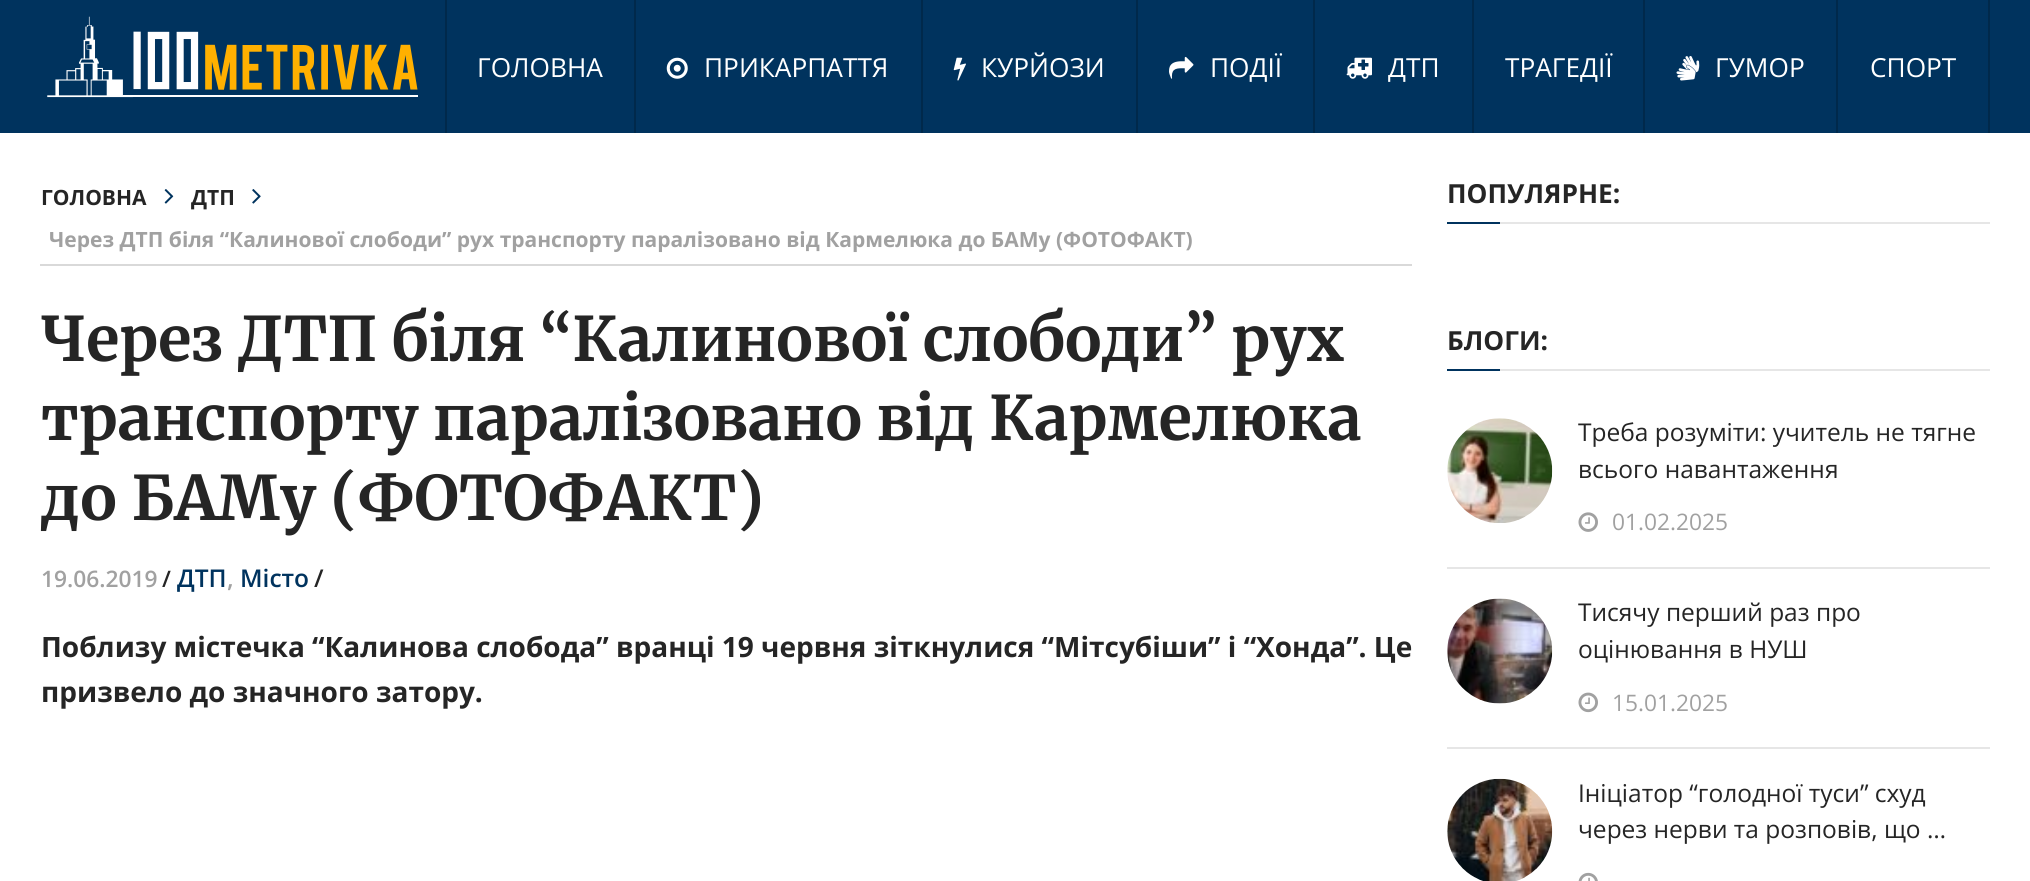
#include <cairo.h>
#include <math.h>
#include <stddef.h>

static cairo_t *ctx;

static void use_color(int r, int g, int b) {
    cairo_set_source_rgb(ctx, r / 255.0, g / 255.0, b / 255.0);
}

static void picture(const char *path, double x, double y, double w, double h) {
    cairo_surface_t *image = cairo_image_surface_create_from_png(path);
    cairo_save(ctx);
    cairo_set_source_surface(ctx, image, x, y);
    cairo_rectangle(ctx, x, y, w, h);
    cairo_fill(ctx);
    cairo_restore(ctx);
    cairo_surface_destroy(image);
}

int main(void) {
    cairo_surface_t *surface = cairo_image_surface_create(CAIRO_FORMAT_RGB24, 2030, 881);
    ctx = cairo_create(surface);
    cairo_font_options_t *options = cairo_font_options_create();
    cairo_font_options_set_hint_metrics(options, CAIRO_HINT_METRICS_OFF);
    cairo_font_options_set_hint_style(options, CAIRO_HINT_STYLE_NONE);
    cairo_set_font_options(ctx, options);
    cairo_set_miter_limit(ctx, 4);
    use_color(255, 255, 255);
    cairo_paint(ctx);
    use_color(0, 51, 94);
    cairo_rectangle(ctx, 0, 0, 2030, 133);
    cairo_fill(ctx);
    picture("img1.png", 47, 16, 371, 82);
    use_color(0, 41, 75);
    cairo_rectangle(ctx, 445, 0, 2, 133);
    cairo_fill(ctx);
    cairo_select_font_face(ctx, "Open Sans", CAIRO_FONT_SLANT_NORMAL, CAIRO_FONT_WEIGHT_NORMAL);
    cairo_set_font_size(ctx, 26.25);
    use_color(255, 255, 255);
    cairo_move_to(ctx, 477, 77);
    cairo_show_text(ctx, "ГОЛОВНА");
    use_color(0, 41, 75);
    cairo_rectangle(ctx, 634, 0, 2, 133);
    cairo_fill(ctx);
    picture("img2.png", 666, 57, 22, 22);
    use_color(255, 255, 255);
    cairo_move_to(ctx, 704, 77);
    cairo_show_text(ctx, "ПРИКАРПАТТЯ");
    use_color(0, 41, 75);
    cairo_rectangle(ctx, 921, 0, 2, 133);
    cairo_fill(ctx);
    picture("img3.png", 953, 57, 13, 24);
    use_color(255, 255, 255);
    cairo_move_to(ctx, 981, 77);
    cairo_show_text(ctx, "КУРЙОЗИ");
    use_color(0, 41, 75);
    cairo_rectangle(ctx, 1136, 0, 2, 133);
    cairo_fill(ctx);
    picture("img4.png", 1169, 56, 25, 23);
    use_color(255, 255, 255);
    cairo_move_to(ctx, 1210, 77);
    cairo_show_text(ctx, "ПОДІЇ");
    use_color(0, 41, 75);
    cairo_rectangle(ctx, 1313, 0, 2, 133);
    cairo_fill(ctx);
    picture("img5.png", 1346, 57, 26, 22);
    use_color(255, 255, 255);
    cairo_move_to(ctx, 1388, 77);
    cairo_show_text(ctx, "ДТП");
    use_color(0, 41, 75);
    cairo_rectangle(ctx, 1472, 0, 2, 133);
    cairo_fill(ctx);
    use_color(255, 255, 255);
    cairo_move_to(ctx, 1505, 77);
    cairo_show_text(ctx, "ТРАГЕДІЇ");
    use_color(0, 41, 75);
    cairo_rectangle(ctx, 1643, 0, 2, 133);
    cairo_fill(ctx);
    picture("img6.png", 1676, 56, 24, 25);
    use_color(255, 255, 255);
    cairo_move_to(ctx, 1715, 77);
    cairo_show_text(ctx, "ГУМОР");
    use_color(0, 41, 75);
    cairo_rectangle(ctx, 1988, 0, 2, 133);
    cairo_fill(ctx);
    cairo_rectangle(ctx, 1836, 0, 2, 133);
    cairo_fill(ctx);
    use_color(255, 255, 255);
    cairo_move_to(ctx, 1870, 77);
    cairo_show_text(ctx, "СПОРТ");
    use_color(217, 217, 217);
    cairo_rectangle(ctx, 40, 264, 1372, 2);
    cairo_fill(ctx);
    cairo_select_font_face(ctx, "Open Sans", CAIRO_FONT_SLANT_NORMAL, CAIRO_FONT_WEIGHT_BOLD);
    cairo_set_font_size(ctx, 21);
    use_color(37, 37, 37);
    cairo_move_to(ctx, 41, 205);
    cairo_show_text(ctx, "ГОЛОВНА");
    picture("img7.png", 164, 189, 10, 15);
    cairo_move_to(ctx, 191, 205);
    cairo_show_text(ctx, "ДТП");
    picture("img8.png", 252, 189, 9, 15);
    use_color(161, 161, 161);
    cairo_move_to(ctx, 49, 247);
    cairo_show_text(ctx, "Через ДТП біля “Калинової слободи” рух транспорту паралізовано від Кармелюка до БАМу (ФОТОФАКТ)");
    cairo_select_font_face(ctx, "Merriweather Light", CAIRO_FONT_SLANT_NORMAL, CAIRO_FONT_WEIGHT_NORMAL);
    cairo_set_font_size(ctx, 61.25);
    use_color(37, 37, 37);
    cairo_move_to(ctx, 41, 361);
    cairo_show_text(ctx, "Через ДТП біля “Калинової слободи” рух");
    cairo_move_to(ctx, 41, 440);
    cairo_show_text(ctx, "транспорту паралізовано від Кармелюка");
    cairo_move_to(ctx, 41, 520);
    cairo_show_text(ctx, "до БАМу (ФОТОФАКТ)");
    cairo_select_font_face(ctx, "Open Sans SemiBold", CAIRO_FONT_SLANT_NORMAL, CAIRO_FONT_WEIGHT_NORMAL);
    cairo_set_font_size(ctx, 22.75);
    use_color(161, 161, 161);
    cairo_move_to(ctx, 41, 587);
    cairo_show_text(ctx, "19.06.2019");
    use_color(37, 37, 37);
    cairo_move_to(ctx, 162, 587);
    cairo_show_text(ctx, "/");
    cairo_set_font_size(ctx, 24.5);
    use_color(0, 51, 94);
    cairo_move_to(ctx, 177, 587);
    cairo_show_text(ctx, "ДТП");
    use_color(161, 161, 161);
    cairo_move_to(ctx, 227, 587);
    cairo_show_text(ctx, ",");
    use_color(0, 51, 94);
    cairo_move_to(ctx, 240, 587);
    cairo_show_text(ctx, "Місто");
    use_color(37, 37, 37);
    cairo_move_to(ctx, 314, 587);
    cairo_show_text(ctx, "/");
    cairo_select_font_face(ctx, "Open Sans", CAIRO_FONT_SLANT_NORMAL, CAIRO_FONT_WEIGHT_BOLD);
    cairo_set_font_size(ctx, 28);
    cairo_move_to(ctx, 41, 657);
    cairo_show_text(ctx, "Поблизу містечка “Калинова слобода” вранці 19 червня зіткнулися “Мітсубіши” і “Хонда”. Це");
    cairo_move_to(ctx, 41, 702);
    cairo_show_text(ctx, "призвело до значного затору.");
    use_color(230, 230, 230);
    cairo_rectangle(ctx, 1500, 222, 490, 2);
    cairo_fill(ctx);
    cairo_set_font_size(ctx, 26.25);
    use_color(37, 37, 37);
    cairo_move_to(ctx, 1447, 203);
    cairo_show_text(ctx, "ПОПУЛЯРНЕ:");
    use_color(0, 51, 94);
    cairo_rectangle(ctx, 1447, 222, 53, 2);
    cairo_fill(ctx);
    use_color(230, 230, 230);
    cairo_rectangle(ctx, 1500, 369, 490, 2);
    cairo_fill(ctx);
    use_color(37, 37, 37);
    cairo_move_to(ctx, 1447, 350);
    cairo_show_text(ctx, "БЛОГИ:");
    use_color(0, 51, 94);
    cairo_rectangle(ctx, 1447, 369, 53, 2);
    cairo_fill(ctx);
    use_color(230, 230, 230);
    cairo_rectangle(ctx, 1447, 567, 543, 2);
    cairo_fill(ctx);
    picture("img9.png", 1447, 418, 106, 105);
    cairo_select_font_face(ctx, "Open Sans", CAIRO_FONT_SLANT_NORMAL, CAIRO_FONT_WEIGHT_NORMAL);
    cairo_set_font_size(ctx, 24.5);
    use_color(37, 37, 37);
    cairo_move_to(ctx, 1578, 441);
    cairo_show_text(ctx, "Треба розуміти: учитель не тягне");
    cairo_move_to(ctx, 1578, 478);
    cairo_show_text(ctx, "всього навантаження");
    picture("img10.png", 1578, 512, 20, 20);
    cairo_set_font_size(ctx, 22.75);
    use_color(161, 161, 161);
    cairo_move_to(ctx, 1612, 530);
    cairo_show_text(ctx, "01.02.2025");
    use_color(230, 230, 230);
    cairo_rectangle(ctx, 1447, 747, 543, 2);
    cairo_fill(ctx);
    picture("img11.png", 1447, 598, 106, 106);
    cairo_set_font_size(ctx, 24.5);
    use_color(37, 37, 37);
    cairo_move_to(ctx, 1578, 621);
    cairo_show_text(ctx, "Тисячу перший раз про");
    cairo_move_to(ctx, 1578, 658);
    cairo_show_text(ctx, "оцінювання в НУШ");
    picture("img12.png", 1578, 692, 20, 21);
    cairo_set_font_size(ctx, 22.75);
    use_color(161, 161, 161);
    cairo_move_to(ctx, 1612, 711);
    cairo_show_text(ctx, "15.01.2025");
    picture("img13.png", 1447, 778, 106, 103);
    cairo_set_font_size(ctx, 24.5);
    use_color(37, 37, 37);
    cairo_move_to(ctx, 1578, 802);
    cairo_show_text(ctx, "Ініціатор “голодної туси” схуд");
    cairo_move_to(ctx, 1578, 838);
    cairo_show_text(ctx, "через нерви та розповів, що …");
    picture("img14.png", 1578, 872, 20, 9);
    cairo_surface_write_to_png(surface, "result.png");
    cairo_font_options_destroy(options);
    cairo_destroy(ctx);
    cairo_surface_destroy(surface);
    return 0;
}
